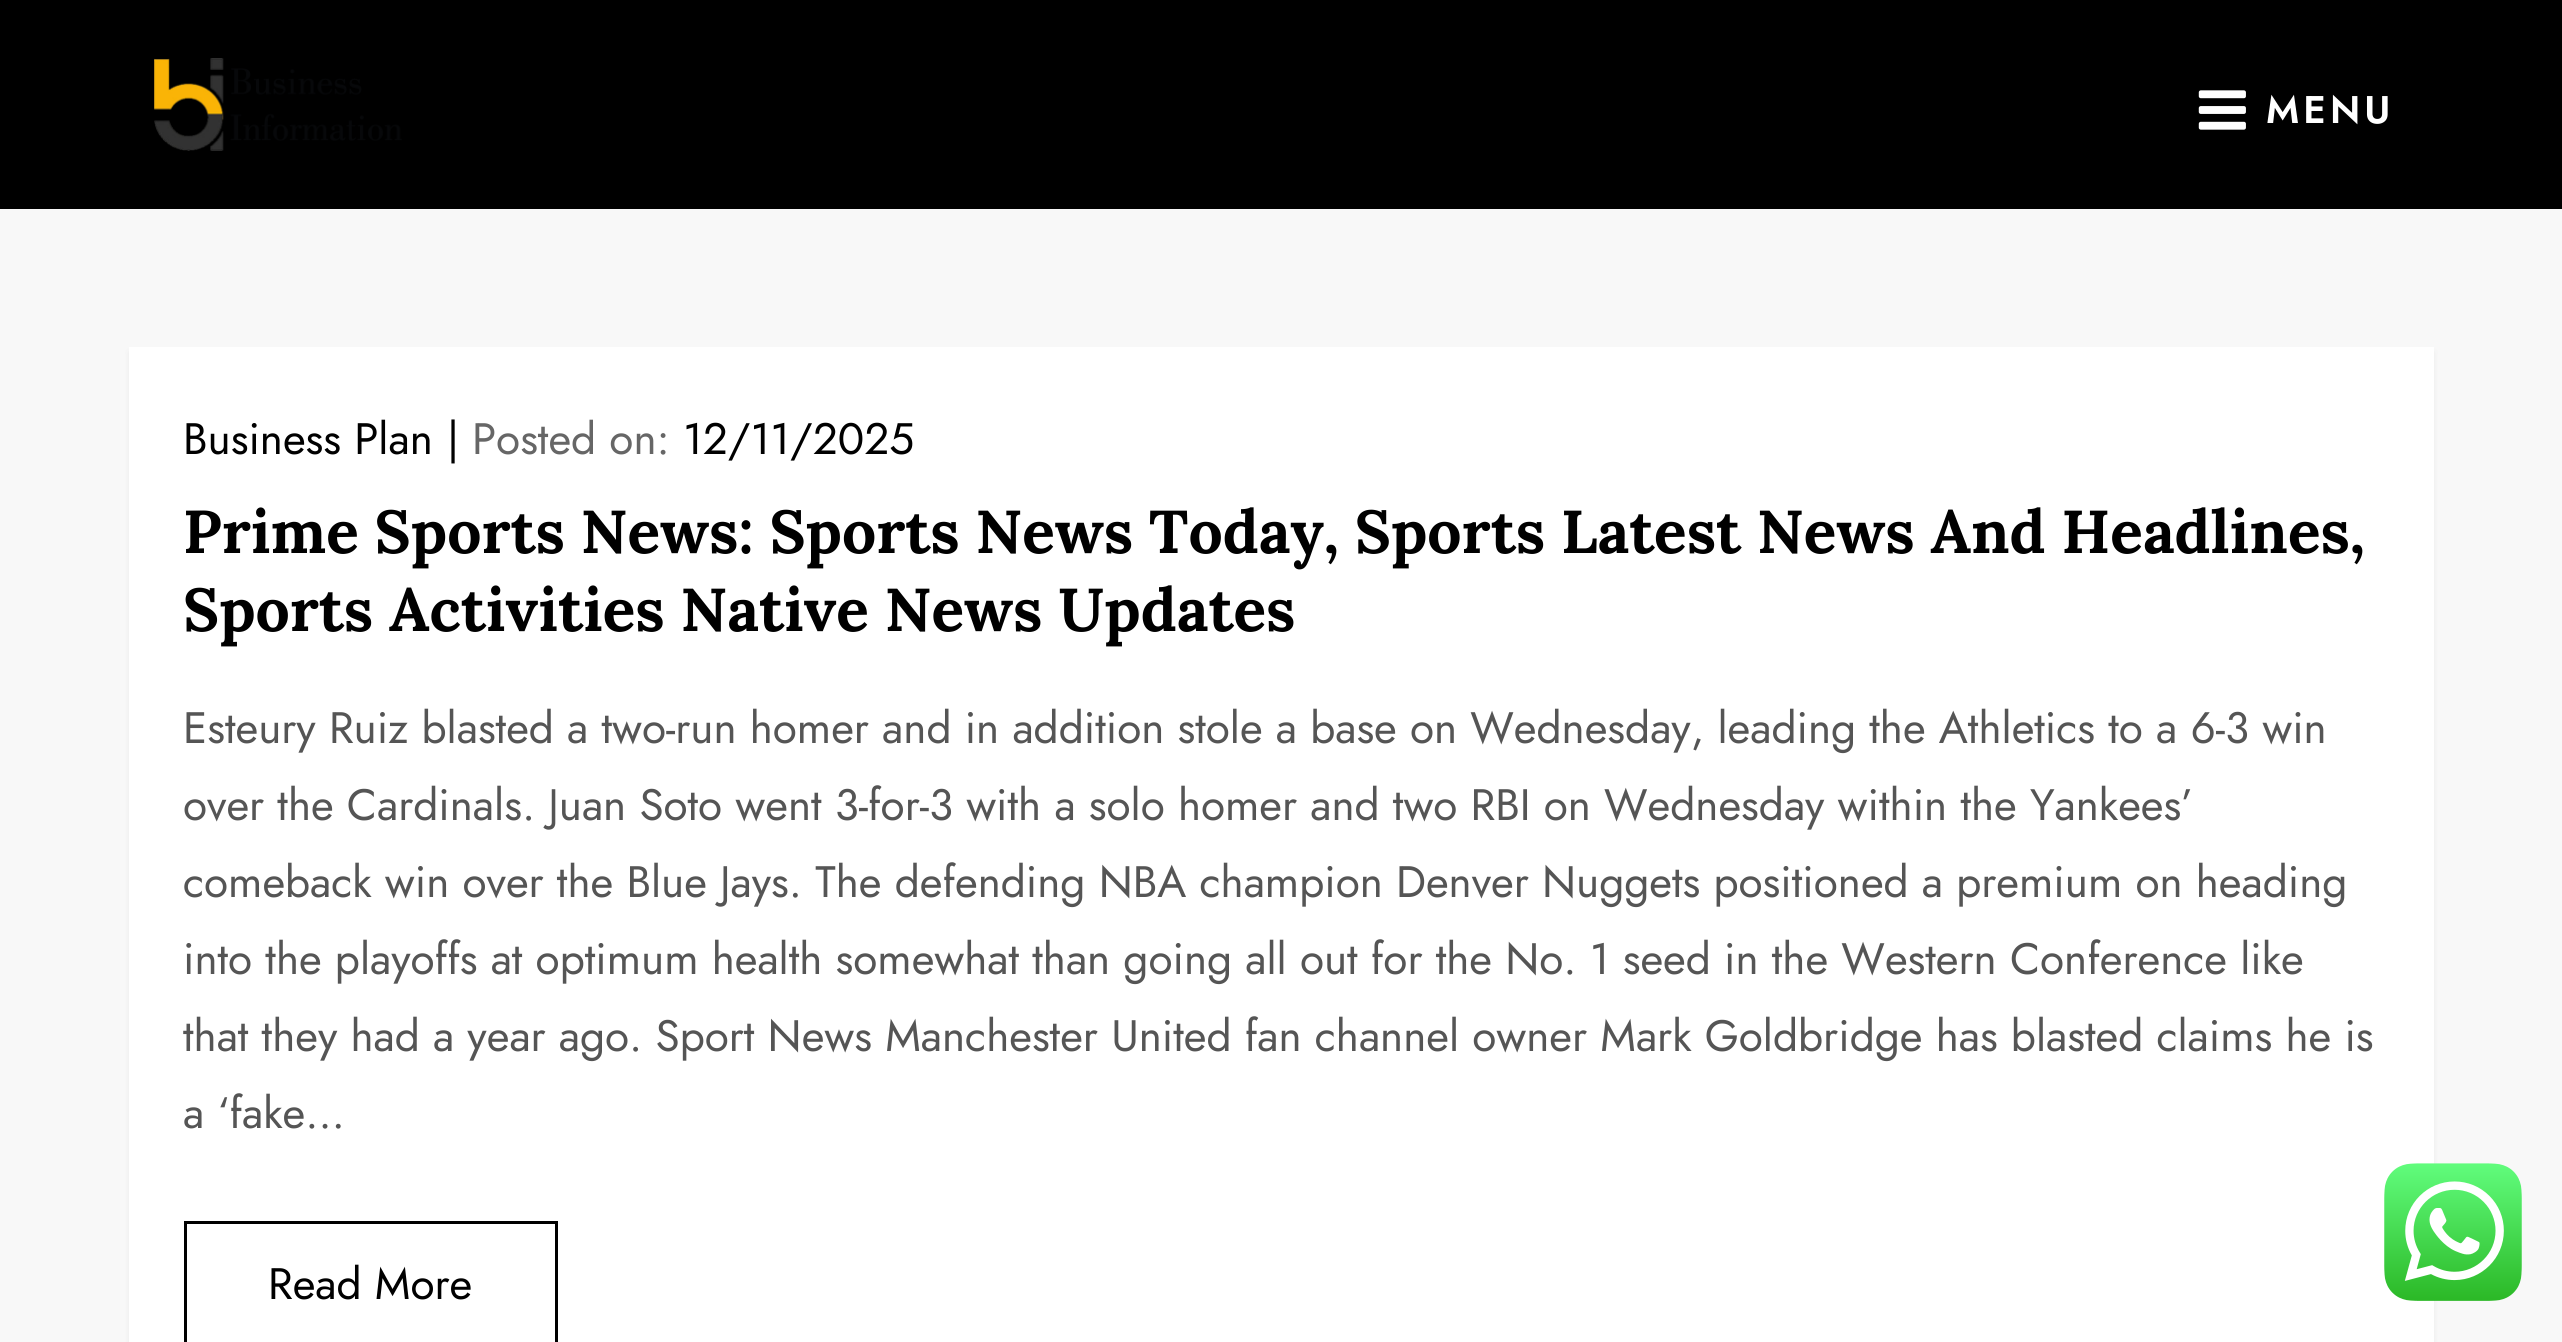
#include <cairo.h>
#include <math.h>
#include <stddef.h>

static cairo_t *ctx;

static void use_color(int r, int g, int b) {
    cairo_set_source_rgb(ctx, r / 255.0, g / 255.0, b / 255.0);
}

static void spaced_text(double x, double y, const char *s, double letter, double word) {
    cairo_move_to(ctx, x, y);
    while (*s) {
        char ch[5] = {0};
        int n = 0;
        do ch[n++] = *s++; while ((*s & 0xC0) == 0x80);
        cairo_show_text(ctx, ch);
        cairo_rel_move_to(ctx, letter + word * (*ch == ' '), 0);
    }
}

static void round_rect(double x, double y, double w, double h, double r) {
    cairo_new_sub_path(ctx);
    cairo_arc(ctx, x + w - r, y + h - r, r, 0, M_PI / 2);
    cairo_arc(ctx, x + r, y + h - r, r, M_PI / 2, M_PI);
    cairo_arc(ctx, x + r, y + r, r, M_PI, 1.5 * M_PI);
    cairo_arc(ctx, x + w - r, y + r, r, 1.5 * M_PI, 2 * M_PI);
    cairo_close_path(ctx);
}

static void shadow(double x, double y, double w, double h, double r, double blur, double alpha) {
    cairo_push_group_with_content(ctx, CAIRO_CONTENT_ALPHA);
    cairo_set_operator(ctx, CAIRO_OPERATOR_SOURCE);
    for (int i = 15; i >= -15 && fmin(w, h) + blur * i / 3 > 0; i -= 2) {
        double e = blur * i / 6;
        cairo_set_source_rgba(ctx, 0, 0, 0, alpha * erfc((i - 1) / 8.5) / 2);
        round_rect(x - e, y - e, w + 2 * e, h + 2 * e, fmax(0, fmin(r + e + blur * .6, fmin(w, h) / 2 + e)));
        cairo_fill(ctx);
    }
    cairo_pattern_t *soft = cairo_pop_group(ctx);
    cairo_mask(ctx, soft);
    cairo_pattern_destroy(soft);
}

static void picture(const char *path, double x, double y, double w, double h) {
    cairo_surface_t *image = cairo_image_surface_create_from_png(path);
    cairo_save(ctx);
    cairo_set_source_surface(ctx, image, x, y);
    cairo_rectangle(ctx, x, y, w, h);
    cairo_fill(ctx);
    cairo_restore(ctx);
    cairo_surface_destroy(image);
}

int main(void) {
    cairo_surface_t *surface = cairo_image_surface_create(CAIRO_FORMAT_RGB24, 2562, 1342);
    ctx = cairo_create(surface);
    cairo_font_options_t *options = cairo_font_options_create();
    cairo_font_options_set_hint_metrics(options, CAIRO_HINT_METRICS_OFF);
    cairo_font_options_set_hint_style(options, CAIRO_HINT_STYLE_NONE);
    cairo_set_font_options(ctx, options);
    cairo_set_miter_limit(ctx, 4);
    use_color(248, 248, 248);
    cairo_paint(ctx);
    use_color(0, 0, 0);
    cairo_rectangle(ctx, 0, 0, 2562, 209);
    cairo_fill(ctx);
    picture("img1.png", 154, 58, 248, 93);
    picture("img2.png", 2198, 90, 48, 40);
    cairo_select_font_face(ctx, "Jost SemiBold", CAIRO_FONT_SLANT_NORMAL, CAIRO_FONT_WEIGHT_NORMAL);
    cairo_set_font_size(ctx, 38.5);
    use_color(255, 255, 255);
    spaced_text(2266, 123, "MENU", 4, 0);
    use_color(0, 0, 0);
    shadow(129, 352, 2305, 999, 0, 3, 0.06);
    use_color(255, 255, 255);
    cairo_rectangle(ctx, 129, 347, 2305, 995);
    cairo_fill(ctx);
    cairo_select_font_face(ctx, "Jost", CAIRO_FONT_SLANT_NORMAL, CAIRO_FONT_WEIGHT_NORMAL);
    cairo_set_font_size(ctx, 44);
    use_color(0, 0, 0);
    cairo_move_to(ctx, 183, 454);
    cairo_show_text(ctx, "Business Plan");
    cairo_move_to(ctx, 447, 454);
    cairo_show_text(ctx, "|");
    use_color(102, 102, 102);
    cairo_move_to(ctx, 472, 454);
    cairo_show_text(ctx, "Posted on:");
    use_color(0, 0, 0);
    cairo_move_to(ctx, 683, 454);
    cairo_show_text(ctx, "12/11/2025");
    cairo_select_font_face(ctx, "Lora", CAIRO_FONT_SLANT_NORMAL, CAIRO_FONT_WEIGHT_BOLD);
    cairo_set_font_size(ctx, 60.5);
    cairo_move_to(ctx, 183, 553);
    cairo_show_text(ctx, "Prime Sports News: Sports News Today, Sports Latest News And Headlines,");
    cairo_move_to(ctx, 183, 631);
    cairo_show_text(ctx, "Sports Activities Native News Updates");
    cairo_select_font_face(ctx, "Jost", CAIRO_FONT_SLANT_NORMAL, CAIRO_FONT_WEIGHT_NORMAL);
    cairo_set_font_size(ctx, 44);
    use_color(85, 85, 85);
    cairo_move_to(ctx, 183, 743);
    cairo_show_text(ctx, "Esteury Ruiz blasted a two-run homer and in addition stole a base on Wednesday, leading the Athletics to a 6-3 win");
    cairo_move_to(ctx, 183, 820);
    cairo_show_text(ctx, "over the Cardinals. Juan Soto went 3-for-3 with a solo homer and two RBI on Wednesday within the Yankees’");
    cairo_move_to(ctx, 183, 897);
    cairo_show_text(ctx, "comeback win over the Blue Jays. The defending NBA champion Denver Nuggets positioned a premium on heading");
    cairo_move_to(ctx, 183, 974);
    cairo_show_text(ctx, "into the playoffs at optimum health somewhat than going all out for the No. 1 seed in the Western Conference like");
    cairo_move_to(ctx, 183, 1051);
    cairo_show_text(ctx, "that they had a year ago. Sport News Manchester United fan channel owner Mark Goldbridge has blasted claims he is");
    cairo_move_to(ctx, 183, 1128);
    cairo_show_text(ctx, "a ‘fake…");
    cairo_rectangle(ctx, 185.5, 1222.5, 371, 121);
    use_color(0, 0, 0);
    cairo_set_line_width(ctx, 3);
    cairo_stroke(ctx);
    cairo_move_to(ctx, 268, 1299);
    cairo_show_text(ctx, "Read More");
    picture("img3.png", 2384, 1163, 138, 138);
    cairo_surface_write_to_png(surface, "result.png");
    cairo_font_options_destroy(options);
    cairo_destroy(ctx);
    cairo_surface_destroy(surface);
    return 0;
}
